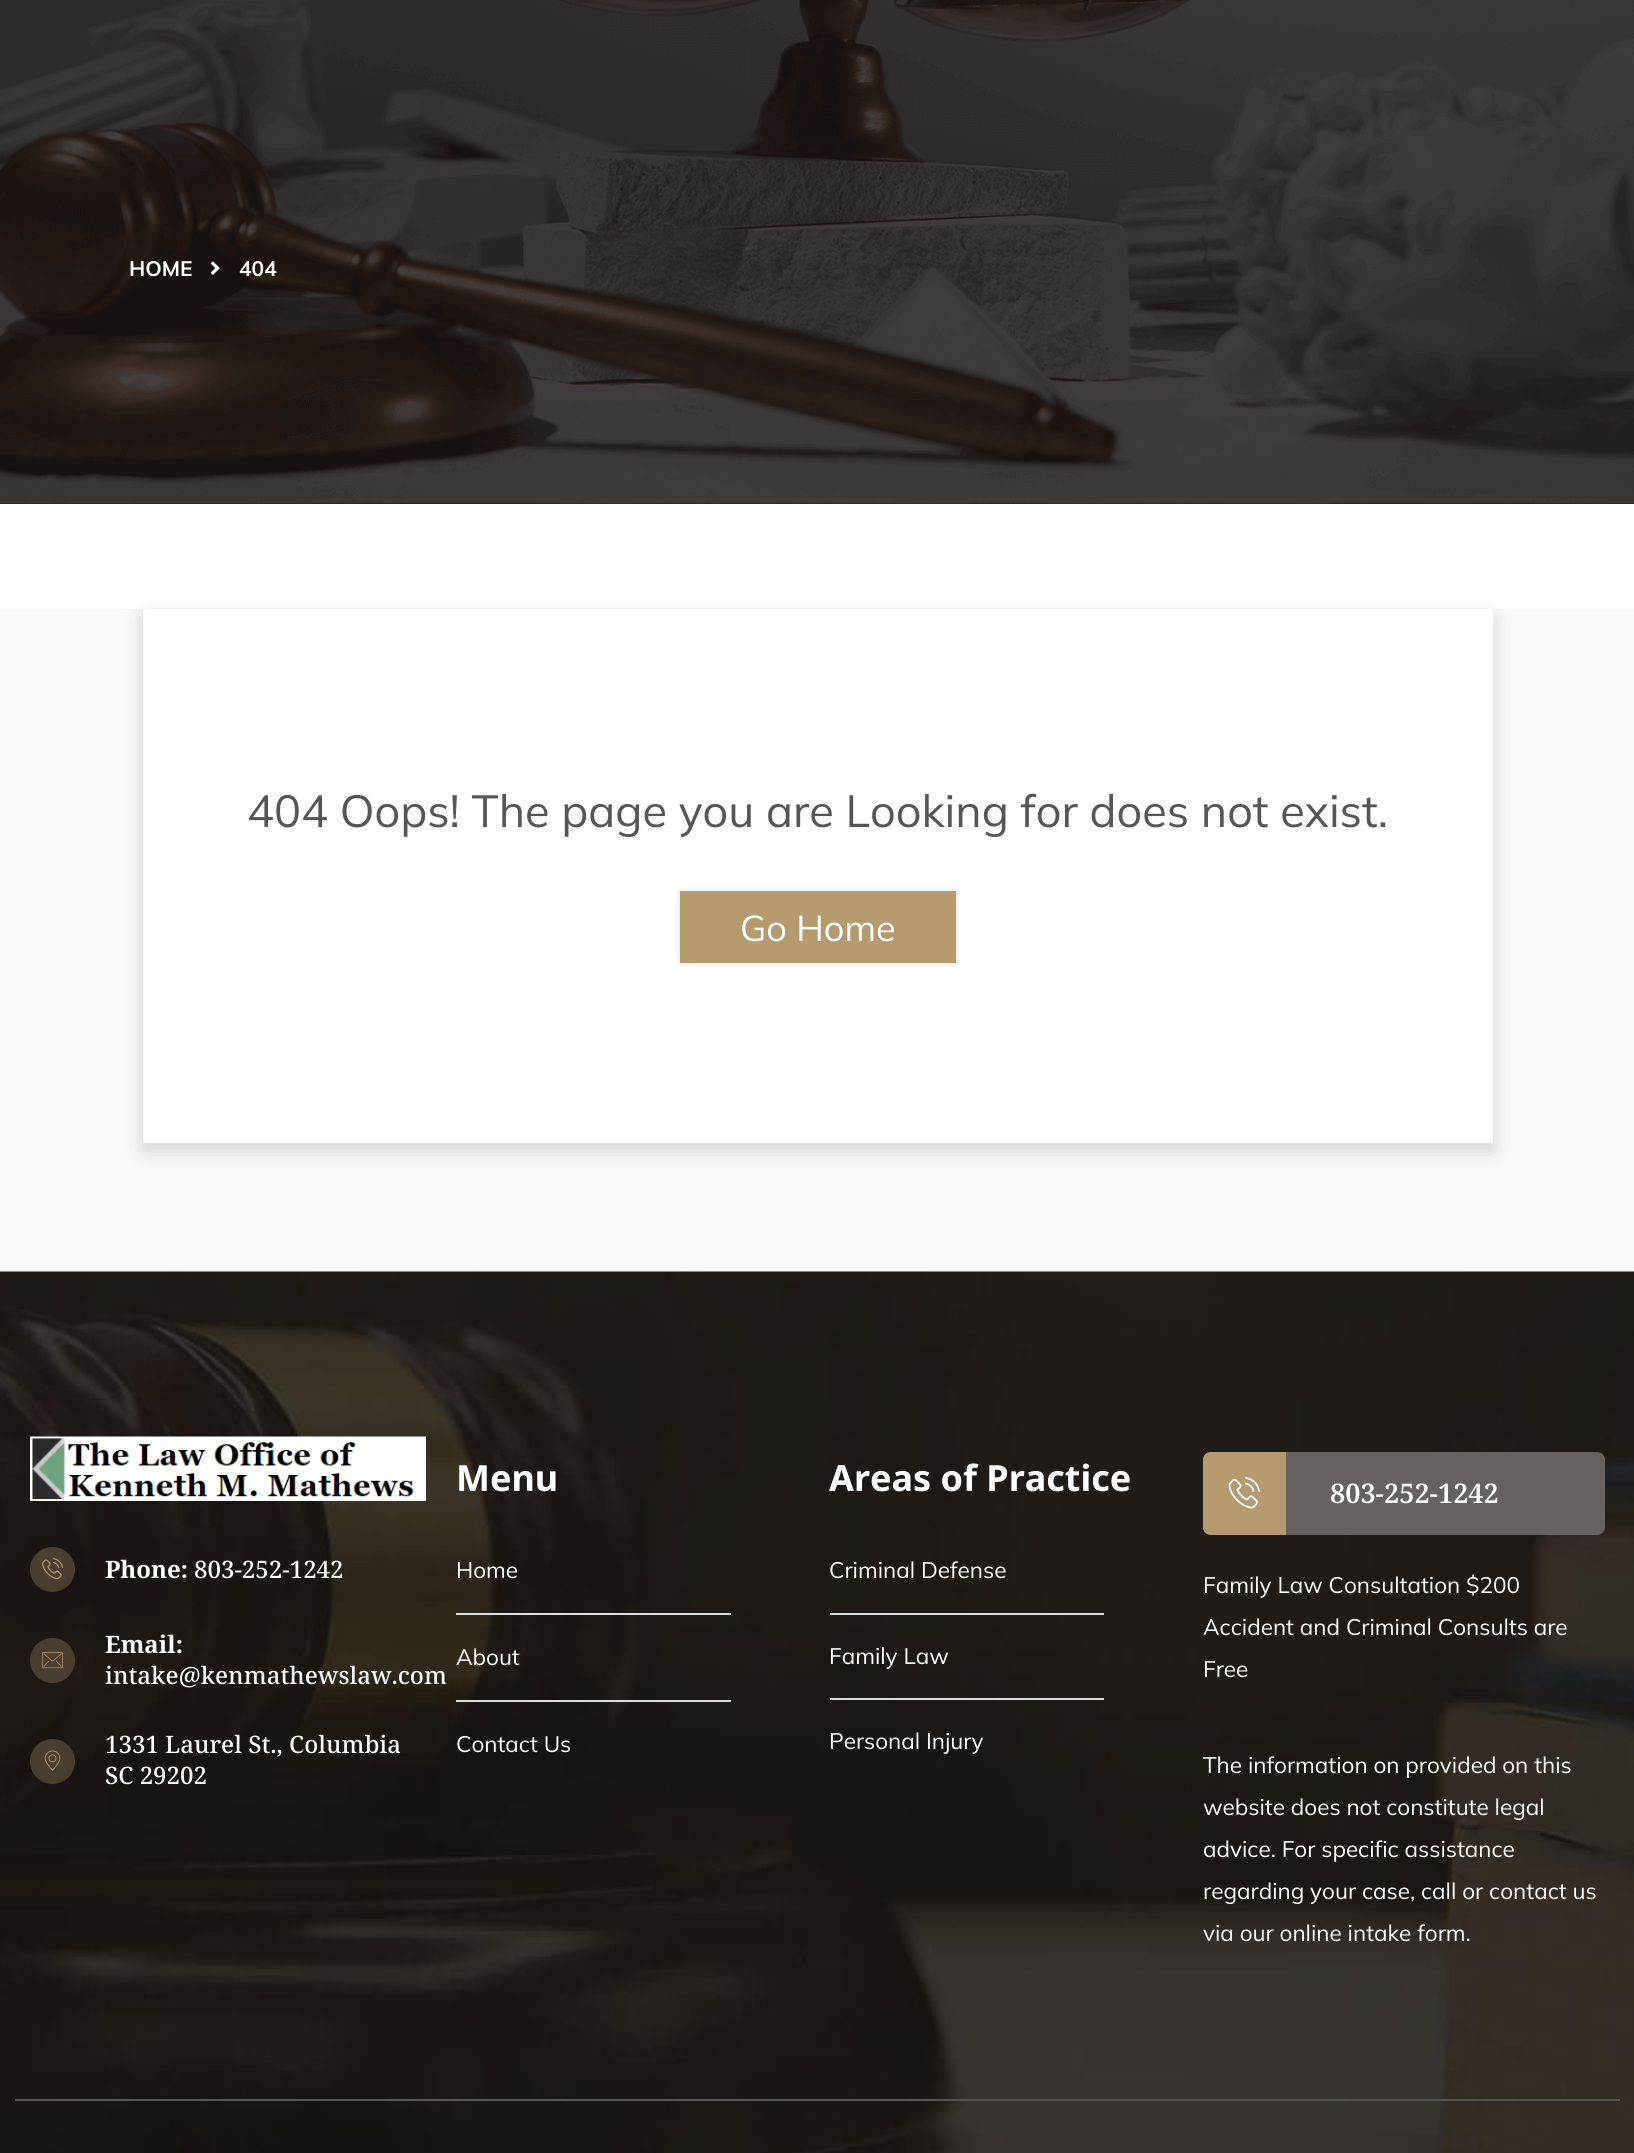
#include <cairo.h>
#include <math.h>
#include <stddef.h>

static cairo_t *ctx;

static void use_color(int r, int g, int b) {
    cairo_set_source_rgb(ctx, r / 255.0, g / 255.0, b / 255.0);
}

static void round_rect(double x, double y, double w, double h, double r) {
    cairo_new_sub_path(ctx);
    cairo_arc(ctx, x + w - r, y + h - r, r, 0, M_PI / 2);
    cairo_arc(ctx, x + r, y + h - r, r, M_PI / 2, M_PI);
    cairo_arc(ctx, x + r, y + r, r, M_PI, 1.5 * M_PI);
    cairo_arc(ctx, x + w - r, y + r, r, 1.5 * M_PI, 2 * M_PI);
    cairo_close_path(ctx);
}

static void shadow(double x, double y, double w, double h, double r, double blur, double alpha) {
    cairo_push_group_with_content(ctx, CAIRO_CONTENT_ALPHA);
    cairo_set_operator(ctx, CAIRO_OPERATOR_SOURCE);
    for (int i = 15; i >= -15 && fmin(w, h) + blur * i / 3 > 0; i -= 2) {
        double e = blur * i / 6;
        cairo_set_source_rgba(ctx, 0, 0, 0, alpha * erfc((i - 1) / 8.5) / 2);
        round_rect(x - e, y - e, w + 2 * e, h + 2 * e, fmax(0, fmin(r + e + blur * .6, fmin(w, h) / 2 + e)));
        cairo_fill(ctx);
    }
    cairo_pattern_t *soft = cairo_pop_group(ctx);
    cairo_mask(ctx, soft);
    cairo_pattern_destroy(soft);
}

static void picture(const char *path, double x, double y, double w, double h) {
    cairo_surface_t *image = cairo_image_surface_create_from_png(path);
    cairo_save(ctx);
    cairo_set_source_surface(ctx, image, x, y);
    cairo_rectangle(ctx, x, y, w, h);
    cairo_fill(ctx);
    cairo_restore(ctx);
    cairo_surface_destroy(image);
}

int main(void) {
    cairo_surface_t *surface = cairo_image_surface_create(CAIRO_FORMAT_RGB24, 1634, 2153);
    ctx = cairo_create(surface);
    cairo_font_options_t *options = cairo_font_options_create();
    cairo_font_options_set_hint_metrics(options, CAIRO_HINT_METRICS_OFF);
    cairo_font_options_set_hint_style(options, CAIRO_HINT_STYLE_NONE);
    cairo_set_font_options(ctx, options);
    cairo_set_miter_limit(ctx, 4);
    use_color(255, 255, 255);
    cairo_paint(ctx);
    use_color(18, 27, 81);
    cairo_rectangle(ctx, 0, 503, 1634, 1);
    cairo_fill(ctx);
    picture("img1.png", 0, 0, 1634, 504);
    cairo_select_font_face(ctx, "Mulish", CAIRO_FONT_SLANT_NORMAL, CAIRO_FONT_WEIGHT_BOLD);
    cairo_set_font_size(ctx, 21);
    use_color(255, 255, 255);
    cairo_move_to(ctx, 129, 276);
    cairo_show_text(ctx, "HOME");
    picture("img2.png", 211, 261, 9, 14);
    cairo_move_to(ctx, 239, 276);
    cairo_show_text(ctx, "404");
    use_color(249, 249, 249);
    cairo_rectangle(ctx, 0, 609, 1634, 663);
    cairo_fill(ctx);
    use_color(0, 0, 0);
    shadow(143, 617, 1350, 534, 0, 11, 0.15);
    use_color(255, 255, 255);
    cairo_rectangle(ctx, 143, 609, 1350, 534);
    cairo_fill(ctx);
    cairo_select_font_face(ctx, "Mulish", CAIRO_FONT_SLANT_NORMAL, CAIRO_FONT_WEIGHT_NORMAL);
    cairo_set_font_size(ctx, 45);
    use_color(85, 85, 85);
    cairo_move_to(ctx, 247, 827);
    cairo_show_text(ctx, "404 Oops! The page you are Looking for does not exist.");
    use_color(0, 0, 0);
    shadow(680, 891, 276, 72, 0, 3, 0.15);
    use_color(181, 154, 109);
    cairo_rectangle(ctx, 680, 891, 276, 72);
    cairo_fill(ctx);
    cairo_set_font_size(ctx, 36);
    use_color(255, 255, 255);
    cairo_move_to(ctx, 740, 941);
    cairo_show_text(ctx, "Go Home");
    picture("img3.png", 0, 1271, 1634, 882);
    picture("img4.png", 30, 1436, 396, 65);
    use_color(74, 62, 46);
    cairo_arc(ctx, 52.5, 1569.5, 22.5, 0, 2 * M_PI);
    cairo_fill(ctx);
    picture("img5.png", 42, 1558, 21, 22);
    cairo_select_font_face(ctx, "Noto Serif", CAIRO_FONT_SLANT_NORMAL, CAIRO_FONT_WEIGHT_BOLD);
    cairo_set_font_size(ctx, 24);
    use_color(255, 255, 255);
    cairo_move_to(ctx, 105, 1578);
    cairo_show_text(ctx, "Phone:");
    cairo_select_font_face(ctx, "Noto Serif Medium", CAIRO_FONT_SLANT_NORMAL, CAIRO_FONT_WEIGHT_NORMAL);
    cairo_move_to(ctx, 194, 1578);
    cairo_show_text(ctx, "803-252-1242");
    use_color(74, 62, 46);
    cairo_new_path(ctx);
    cairo_arc(ctx, 52.5, 1660.5, 22.5, 0, 2 * M_PI);
    cairo_fill(ctx);
    picture("img6.png", 42, 1652, 21, 17);
    cairo_select_font_face(ctx, "Noto Serif", CAIRO_FONT_SLANT_NORMAL, CAIRO_FONT_WEIGHT_BOLD);
    use_color(255, 255, 255);
    cairo_move_to(ctx, 105, 1653);
    cairo_show_text(ctx, "Email:");
    cairo_select_font_face(ctx, "Noto Serif Medium", CAIRO_FONT_SLANT_NORMAL, CAIRO_FONT_WEIGHT_NORMAL);
    cairo_move_to(ctx, 105, 1684);
    cairo_show_text(ctx, "intake@kenmathewslaw.com");
    use_color(74, 62, 46);
    cairo_new_path(ctx);
    cairo_arc(ctx, 52.5, 1761.5, 22.5, 0, 2 * M_PI);
    cairo_fill(ctx);
    picture("img7.png", 44, 1750, 17, 21);
    use_color(255, 255, 255);
    cairo_move_to(ctx, 105, 1753);
    cairo_show_text(ctx, "1331 Laurel St., Columbia");
    cairo_move_to(ctx, 105, 1784);
    cairo_show_text(ctx, "SC 29202");
    cairo_select_font_face(ctx, "Noto Sans", CAIRO_FONT_SLANT_NORMAL, CAIRO_FONT_WEIGHT_BOLD);
    cairo_set_font_size(ctx, 36);
    cairo_move_to(ctx, 456, 1491);
    cairo_show_text(ctx, "Menu");
    cairo_select_font_face(ctx, "Mulish", CAIRO_FONT_SLANT_NORMAL, CAIRO_FONT_WEIGHT_NORMAL);
    cairo_set_font_size(ctx, 22.5);
    cairo_move_to(ctx, 456, 1578);
    cairo_show_text(ctx, "Home");
    use_color(221, 221, 221);
    cairo_rectangle(ctx, 456, 1613, 275, 2);
    cairo_fill(ctx);
    use_color(255, 255, 255);
    cairo_move_to(ctx, 456, 1665);
    cairo_show_text(ctx, "About");
    use_color(221, 221, 221);
    cairo_rectangle(ctx, 456, 1700, 275, 2);
    cairo_fill(ctx);
    use_color(255, 255, 255);
    cairo_move_to(ctx, 456, 1752);
    cairo_show_text(ctx, "Contact Us");
    cairo_select_font_face(ctx, "Noto Sans", CAIRO_FONT_SLANT_NORMAL, CAIRO_FONT_WEIGHT_BOLD);
    cairo_set_font_size(ctx, 36);
    cairo_move_to(ctx, 829, 1491);
    cairo_show_text(ctx, "Areas of Practice");
    cairo_select_font_face(ctx, "Mulish", CAIRO_FONT_SLANT_NORMAL, CAIRO_FONT_WEIGHT_NORMAL);
    cairo_set_font_size(ctx, 22.5);
    cairo_move_to(ctx, 829, 1578);
    cairo_show_text(ctx, "Criminal Defense");
    use_color(221, 221, 221);
    cairo_rectangle(ctx, 830, 1613, 274, 2);
    cairo_fill(ctx);
    use_color(255, 255, 255);
    cairo_move_to(ctx, 829, 1664);
    cairo_show_text(ctx, "Family Law");
    use_color(221, 221, 221);
    cairo_rectangle(ctx, 830, 1698, 274, 2);
    cairo_fill(ctx);
    use_color(255, 255, 255);
    cairo_move_to(ctx, 829, 1749);
    cairo_show_text(ctx, "Personal Injury");
    use_color(103, 98, 95);
    round_rect(1203, 1452, 402, 83, 8);
    cairo_fill(ctx);
    use_color(181, 154, 109);
    cairo_new_path(ctx);
    cairo_move_to(ctx, 1211, 1452);
    cairo_line_to(ctx, 1286, 1452);
    cairo_line_to(ctx, 1286, 1535);
    cairo_line_to(ctx, 1211, 1535);
    cairo_curve_to(ctx, 1206.5, 1535, 1203, 1531.5, 1203, 1527);
    cairo_line_to(ctx, 1203, 1460);
    cairo_curve_to(ctx, 1203, 1455.5, 1206.5, 1452, 1211, 1452);
    cairo_close_path(ctx);
    cairo_fill(ctx);
    picture("img8.png", 1228, 1477, 32, 32);
    cairo_select_font_face(ctx, "Noto Serif SemiBold", CAIRO_FONT_SLANT_NORMAL, CAIRO_FONT_WEIGHT_NORMAL);
    cairo_set_font_size(ctx, 27);
    use_color(255, 255, 255);
    cairo_move_to(ctx, 1330, 1503);
    cairo_show_text(ctx, "803-252-1242");
    cairo_select_font_face(ctx, "Mulish", CAIRO_FONT_SLANT_NORMAL, CAIRO_FONT_WEIGHT_NORMAL);
    cairo_set_font_size(ctx, 22.5);
    cairo_move_to(ctx, 1203, 1593);
    cairo_show_text(ctx, "Family Law Consultation $200");
    cairo_move_to(ctx, 1203, 1635);
    cairo_show_text(ctx, "Accident and Criminal Consults are");
    cairo_move_to(ctx, 1203, 1677);
    cairo_show_text(ctx, "Free");
    cairo_move_to(ctx, 1203, 1773);
    cairo_show_text(ctx, "The information on provided on this");
    cairo_move_to(ctx, 1203, 1815);
    cairo_show_text(ctx, "website does not constitute legal");
    cairo_move_to(ctx, 1203, 1857);
    cairo_show_text(ctx, "advice. For specific assistance");
    cairo_move_to(ctx, 1203, 1899);
    cairo_show_text(ctx, "regarding your case, call or contact us");
    cairo_move_to(ctx, 1203, 1941);
    cairo_show_text(ctx, "via our online intake form.");
    use_color(85, 85, 85);
    cairo_rectangle(ctx, 15, 2099, 1605, 2);
    cairo_fill(ctx);
    cairo_surface_write_to_png(surface, "result.png");
    cairo_font_options_destroy(options);
    cairo_destroy(ctx);
    cairo_surface_destroy(surface);
    return 0;
}
